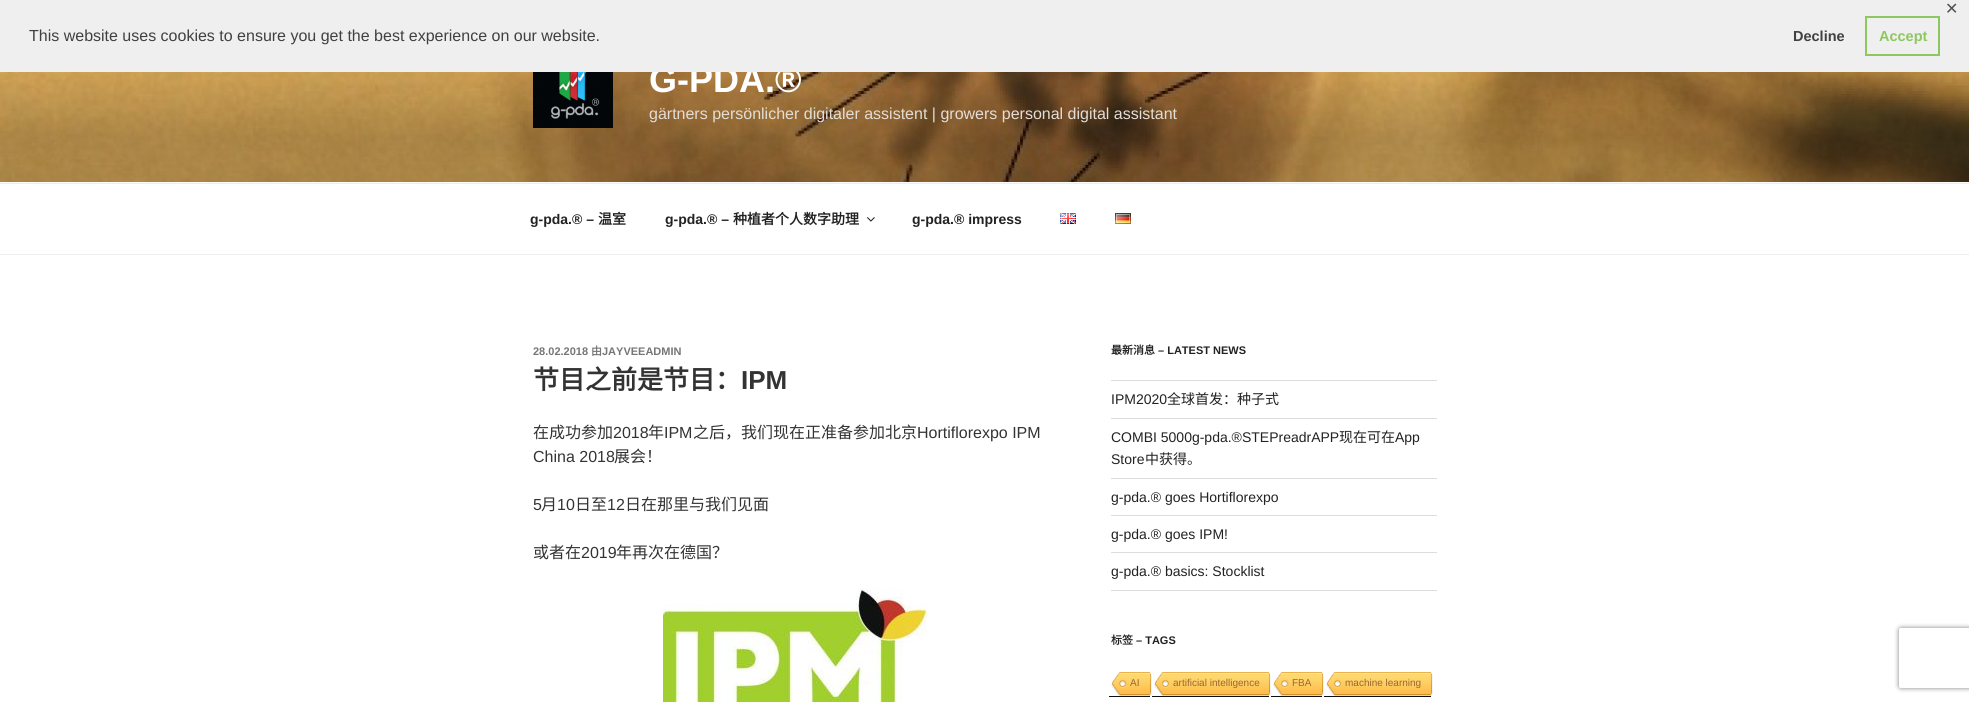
#include <cairo.h>
#include <math.h>
#include <stddef.h>

static cairo_t *ctx;

static void use_color(int r, int g, int b) {
    cairo_set_source_rgb(ctx, r / 255.0, g / 255.0, b / 255.0);
}

static void round_rect(double x, double y, double w, double h, double r) {
    cairo_new_sub_path(ctx);
    cairo_arc(ctx, x + w - r, y + h - r, r, 0, M_PI / 2);
    cairo_arc(ctx, x + r, y + h - r, r, M_PI / 2, M_PI);
    cairo_arc(ctx, x + r, y + r, r, M_PI, 1.5 * M_PI);
    cairo_arc(ctx, x + w - r, y + r, r, 1.5 * M_PI, 2 * M_PI);
    cairo_close_path(ctx);
}

static void shadow(double x, double y, double w, double h, double r, double blur, double alpha) {
    cairo_push_group_with_content(ctx, CAIRO_CONTENT_ALPHA);
    cairo_set_operator(ctx, CAIRO_OPERATOR_SOURCE);
    for (int i = 15; i >= -15 && fmin(w, h) + blur * i / 3 > 0; i -= 2) {
        double e = blur * i / 6;
        cairo_set_source_rgba(ctx, 0, 0, 0, alpha * erfc((i - 1) / 8.5) / 2);
        round_rect(x - e, y - e, w + 2 * e, h + 2 * e, fmax(0, fmin(r + e + blur * .6, fmin(w, h) / 2 + e)));
        cairo_fill(ctx);
    }
    cairo_pattern_t *soft = cairo_pop_group(ctx);
    cairo_mask(ctx, soft);
    cairo_pattern_destroy(soft);
}

static void picture(const char *path, double x, double y, double w, double h) {
    cairo_surface_t *image = cairo_image_surface_create_from_png(path);
    cairo_save(ctx);
    cairo_set_source_surface(ctx, image, x, y);
    cairo_rectangle(ctx, x, y, w, h);
    cairo_fill(ctx);
    cairo_restore(ctx);
    cairo_surface_destroy(image);
}

int main(void) {
    cairo_surface_t *surface = cairo_image_surface_create(CAIRO_FORMAT_RGB24, 1969, 702);
    ctx = cairo_create(surface);
    cairo_font_options_t *options = cairo_font_options_create();
    cairo_font_options_set_hint_metrics(options, CAIRO_HINT_METRICS_OFF);
    cairo_font_options_set_hint_style(options, CAIRO_HINT_STYLE_NONE);
    cairo_set_font_options(ctx, options);
    cairo_set_miter_limit(ctx, 4);
    use_color(255, 255, 255);
    cairo_paint(ctx);
    picture("img2.png", 0, 72, 1969, 110);
    cairo_select_font_face(ctx, "Liberation Sans", CAIRO_FONT_SLANT_NORMAL, CAIRO_FONT_WEIGHT_BOLD);
    cairo_set_font_size(ctx, 36);
    use_color(255, 255, 255);
    cairo_move_to(ctx, 649, 92);
    cairo_show_text(ctx, "G-PDA.®");
    use_color(239, 239, 239);
    cairo_rectangle(ctx, 0, 0, 1969, 72);
    cairo_fill(ctx);
    cairo_select_font_face(ctx, "DejaVu Sans", CAIRO_FONT_SLANT_NORMAL, CAIRO_FONT_WEIGHT_NORMAL);
    cairo_set_font_size(ctx, 16);
    use_color(82, 82, 82);
    cairo_move_to(ctx, 1945, 14);
    cairo_show_text(ctx, "✕");
    cairo_select_font_face(ctx, "Liberation Sans", CAIRO_FONT_SLANT_NORMAL, CAIRO_FONT_WEIGHT_NORMAL);
    use_color(64, 64, 64);
    cairo_move_to(ctx, 29, 41);
    cairo_show_text(ctx, "This website uses cookies to ensure you get the best experience on our website.");
    cairo_select_font_face(ctx, "Liberation Sans", CAIRO_FONT_SLANT_NORMAL, CAIRO_FONT_WEIGHT_BOLD);
    cairo_set_font_size(ctx, 14.5);
    cairo_move_to(ctx, 1793, 41);
    cairo_show_text(ctx, "Decline");
    cairo_rectangle(ctx, 1866, 17, 73, 38);
    use_color(142, 199, 96);
    cairo_stroke(ctx);
    cairo_move_to(ctx, 1879, 41);
    cairo_show_text(ctx, "Accept");
    use_color(250, 250, 250);
    cairo_rectangle(ctx, 0, 182, 1969, 1);
    cairo_fill(ctx);
    picture("img1.png", 533, 72, 80, 56);
    cairo_select_font_face(ctx, "Liberation Sans", CAIRO_FONT_SLANT_NORMAL, CAIRO_FONT_WEIGHT_NORMAL);
    cairo_set_font_size(ctx, 16);
    use_color(228, 221, 213);
    cairo_move_to(ctx, 649, 119);
    cairo_show_text(ctx, "gärtners persönlicher digitaler assistent | growers personal digital assistant");
    use_color(238, 238, 238);
    cairo_rectangle(ctx, 0, 183, 1969, 1);
    cairo_fill(ctx);
    cairo_rectangle(ctx, 0, 254, 1969, 1);
    cairo_fill(ctx);
    cairo_select_font_face(ctx, "Liberation Sans", CAIRO_FONT_SLANT_NORMAL, CAIRO_FONT_WEIGHT_BOLD);
    cairo_set_font_size(ctx, 14);
    use_color(34, 34, 34);
    cairo_move_to(ctx, 530, 224);
    cairo_show_text(ctx, "g-pda.® –");
    cairo_select_font_face(ctx, "Noto Sans CJK SC", CAIRO_FONT_SLANT_NORMAL, CAIRO_FONT_WEIGHT_BOLD);
    cairo_move_to(ctx, 598, 224);
    cairo_show_text(ctx, "温室");
    cairo_select_font_face(ctx, "Liberation Sans", CAIRO_FONT_SLANT_NORMAL, CAIRO_FONT_WEIGHT_BOLD);
    cairo_move_to(ctx, 665, 224);
    cairo_show_text(ctx, "g-pda.® –");
    cairo_select_font_face(ctx, "Noto Sans CJK SC", CAIRO_FONT_SLANT_NORMAL, CAIRO_FONT_WEIGHT_BOLD);
    cairo_move_to(ctx, 733, 224);
    cairo_show_text(ctx, "种植者个人数字助理");
    picture("img3.png", 867, 217, 8, 5);
    cairo_select_font_face(ctx, "Liberation Sans", CAIRO_FONT_SLANT_NORMAL, CAIRO_FONT_WEIGHT_BOLD);
    cairo_move_to(ctx, 912, 224);
    cairo_show_text(ctx, "g-pda.® impress");
    picture("img4.png", 1060, 213, 16, 11);
    picture("img5.png", 1115, 213, 16, 11);
    cairo_set_font_size(ctx, 11);
    use_color(118, 118, 118);
    cairo_move_to(ctx, 533, 355);
    cairo_show_text(ctx, "28.02.2018");
    cairo_select_font_face(ctx, "Noto Sans CJK SC", CAIRO_FONT_SLANT_NORMAL, CAIRO_FONT_WEIGHT_BOLD);
    cairo_move_to(ctx, 591, 355);
    cairo_show_text(ctx, "由");
    cairo_select_font_face(ctx, "Liberation Sans", CAIRO_FONT_SLANT_NORMAL, CAIRO_FONT_WEIGHT_BOLD);
    cairo_move_to(ctx, 602, 355);
    cairo_show_text(ctx, "JAYVEEADMIN");
    cairo_select_font_face(ctx, "Noto Sans CJK SC", CAIRO_FONT_SLANT_NORMAL, CAIRO_FONT_WEIGHT_BOLD);
    cairo_set_font_size(ctx, 26);
    use_color(51, 51, 51);
    cairo_move_to(ctx, 533, 389);
    cairo_show_text(ctx, "节目之前是节目：");
    cairo_select_font_face(ctx, "Liberation Sans", CAIRO_FONT_SLANT_NORMAL, CAIRO_FONT_WEIGHT_BOLD);
    cairo_move_to(ctx, 741, 389);
    cairo_show_text(ctx, "IPM");
    cairo_select_font_face(ctx, "Noto Sans CJK SC", CAIRO_FONT_SLANT_NORMAL, CAIRO_FONT_WEIGHT_NORMAL);
    cairo_set_font_size(ctx, 16);
    cairo_move_to(ctx, 533, 438);
    cairo_show_text(ctx, "在成功参加");
    cairo_select_font_face(ctx, "Liberation Sans", CAIRO_FONT_SLANT_NORMAL, CAIRO_FONT_WEIGHT_NORMAL);
    cairo_move_to(ctx, 613, 438);
    cairo_show_text(ctx, "2018");
    cairo_select_font_face(ctx, "Noto Sans CJK SC", CAIRO_FONT_SLANT_NORMAL, CAIRO_FONT_WEIGHT_NORMAL);
    cairo_move_to(ctx, 648, 438);
    cairo_show_text(ctx, "年");
    cairo_select_font_face(ctx, "Liberation Sans", CAIRO_FONT_SLANT_NORMAL, CAIRO_FONT_WEIGHT_NORMAL);
    cairo_move_to(ctx, 664, 438);
    cairo_show_text(ctx, "IPM");
    cairo_select_font_face(ctx, "Noto Sans CJK SC", CAIRO_FONT_SLANT_NORMAL, CAIRO_FONT_WEIGHT_NORMAL);
    cairo_move_to(ctx, 693, 438);
    cairo_show_text(ctx, "之后，我们现在正准备参加北京");
    cairo_select_font_face(ctx, "Liberation Sans", CAIRO_FONT_SLANT_NORMAL, CAIRO_FONT_WEIGHT_NORMAL);
    cairo_move_to(ctx, 917, 438);
    cairo_show_text(ctx, "Hortiflorexpo IPM");
    cairo_move_to(ctx, 533, 462);
    cairo_show_text(ctx, "China 2018");
    cairo_select_font_face(ctx, "Noto Sans CJK SC", CAIRO_FONT_SLANT_NORMAL, CAIRO_FONT_WEIGHT_NORMAL);
    cairo_move_to(ctx, 614, 462);
    cairo_show_text(ctx, "展会！");
    cairo_select_font_face(ctx, "Liberation Sans", CAIRO_FONT_SLANT_NORMAL, CAIRO_FONT_WEIGHT_NORMAL);
    cairo_move_to(ctx, 533, 510);
    cairo_show_text(ctx, "5");
    cairo_select_font_face(ctx, "Noto Sans CJK SC", CAIRO_FONT_SLANT_NORMAL, CAIRO_FONT_WEIGHT_NORMAL);
    cairo_move_to(ctx, 541, 510);
    cairo_show_text(ctx, "月");
    cairo_select_font_face(ctx, "Liberation Sans", CAIRO_FONT_SLANT_NORMAL, CAIRO_FONT_WEIGHT_NORMAL);
    cairo_move_to(ctx, 557, 510);
    cairo_show_text(ctx, "10");
    cairo_select_font_face(ctx, "Noto Sans CJK SC", CAIRO_FONT_SLANT_NORMAL, CAIRO_FONT_WEIGHT_NORMAL);
    cairo_move_to(ctx, 575, 510);
    cairo_show_text(ctx, "日至");
    cairo_select_font_face(ctx, "Liberation Sans", CAIRO_FONT_SLANT_NORMAL, CAIRO_FONT_WEIGHT_NORMAL);
    cairo_move_to(ctx, 607, 510);
    cairo_show_text(ctx, "12");
    cairo_select_font_face(ctx, "Noto Sans CJK SC", CAIRO_FONT_SLANT_NORMAL, CAIRO_FONT_WEIGHT_NORMAL);
    cairo_move_to(ctx, 625, 510);
    cairo_show_text(ctx, "日在那里与我们见面");
    cairo_move_to(ctx, 533, 558);
    cairo_show_text(ctx, "或者在");
    cairo_select_font_face(ctx, "Liberation Sans", CAIRO_FONT_SLANT_NORMAL, CAIRO_FONT_WEIGHT_NORMAL);
    cairo_move_to(ctx, 581, 558);
    cairo_show_text(ctx, "2019");
    cairo_select_font_face(ctx, "Noto Sans CJK SC", CAIRO_FONT_SLANT_NORMAL, CAIRO_FONT_WEIGHT_NORMAL);
    cairo_move_to(ctx, 616, 558);
    cairo_show_text(ctx, "年再次在德国？");
    picture("img6.png", 663, 589, 264, 113);
    cairo_select_font_face(ctx, "Noto Sans CJK SC", CAIRO_FONT_SLANT_NORMAL, CAIRO_FONT_WEIGHT_BOLD);
    cairo_set_font_size(ctx, 11);
    use_color(34, 34, 34);
    cairo_move_to(ctx, 1111, 354);
    cairo_show_text(ctx, "最新消息");
    cairo_select_font_face(ctx, "Liberation Sans", CAIRO_FONT_SLANT_NORMAL, CAIRO_FONT_WEIGHT_BOLD);
    cairo_move_to(ctx, 1158, 354);
    cairo_show_text(ctx, "– LATEST NEWS");
    use_color(221, 221, 221);
    cairo_rectangle(ctx, 1111, 380, 326, 1);
    cairo_fill(ctx);
    cairo_rectangle(ctx, 1111, 418, 326, 1);
    cairo_fill(ctx);
    cairo_select_font_face(ctx, "Liberation Sans", CAIRO_FONT_SLANT_NORMAL, CAIRO_FONT_WEIGHT_NORMAL);
    cairo_set_font_size(ctx, 14);
    use_color(34, 34, 34);
    cairo_move_to(ctx, 1111, 404);
    cairo_show_text(ctx, "IPM2020");
    cairo_select_font_face(ctx, "Noto Sans CJK SC", CAIRO_FONT_SLANT_NORMAL, CAIRO_FONT_WEIGHT_NORMAL);
    cairo_move_to(ctx, 1167, 404);
    cairo_show_text(ctx, "全球首发：种子式");
    use_color(221, 221, 221);
    cairo_rectangle(ctx, 1111, 478, 326, 1);
    cairo_fill(ctx);
    cairo_select_font_face(ctx, "Liberation Sans", CAIRO_FONT_SLANT_NORMAL, CAIRO_FONT_WEIGHT_NORMAL);
    use_color(34, 34, 34);
    cairo_move_to(ctx, 1111, 442);
    cairo_show_text(ctx, "COMBI 5000g-pda.®STEPreadrAPP");
    cairo_select_font_face(ctx, "Noto Sans CJK SC", CAIRO_FONT_SLANT_NORMAL, CAIRO_FONT_WEIGHT_NORMAL);
    cairo_move_to(ctx, 1339, 442);
    cairo_show_text(ctx, "现在可在");
    cairo_select_font_face(ctx, "Liberation Sans", CAIRO_FONT_SLANT_NORMAL, CAIRO_FONT_WEIGHT_NORMAL);
    cairo_move_to(ctx, 1395, 442);
    cairo_show_text(ctx, "App");
    cairo_move_to(ctx, 1111, 464);
    cairo_show_text(ctx, "Store");
    cairo_select_font_face(ctx, "Noto Sans CJK SC", CAIRO_FONT_SLANT_NORMAL, CAIRO_FONT_WEIGHT_NORMAL);
    cairo_move_to(ctx, 1145, 464);
    cairo_show_text(ctx, "中获得。");
    use_color(221, 221, 221);
    cairo_rectangle(ctx, 1111, 515, 326, 1);
    cairo_fill(ctx);
    cairo_select_font_face(ctx, "Liberation Sans", CAIRO_FONT_SLANT_NORMAL, CAIRO_FONT_WEIGHT_NORMAL);
    use_color(34, 34, 34);
    cairo_move_to(ctx, 1111, 502);
    cairo_show_text(ctx, "g-pda.® goes Hortiflorexpo");
    use_color(221, 221, 221);
    cairo_rectangle(ctx, 1111, 552, 326, 1);
    cairo_fill(ctx);
    use_color(34, 34, 34);
    cairo_move_to(ctx, 1111, 539);
    cairo_show_text(ctx, "g-pda.® goes IPM!");
    use_color(221, 221, 221);
    cairo_rectangle(ctx, 1111, 590, 326, 1);
    cairo_fill(ctx);
    use_color(34, 34, 34);
    cairo_move_to(ctx, 1111, 576);
    cairo_show_text(ctx, "g-pda.® basics: Stocklist");
    cairo_select_font_face(ctx, "Noto Sans CJK SC", CAIRO_FONT_SLANT_NORMAL, CAIRO_FONT_WEIGHT_BOLD);
    cairo_set_font_size(ctx, 11);
    cairo_move_to(ctx, 1111, 644);
    cairo_show_text(ctx, "标签");
    cairo_select_font_face(ctx, "Liberation Sans", CAIRO_FONT_SLANT_NORMAL, CAIRO_FONT_WEIGHT_BOLD);
    cairo_move_to(ctx, 1136, 644);
    cairo_show_text(ctx, "– TAGS");
    picture("img7.png", 1111, 672, 39, 24);
    use_color(15, 15, 15);
    cairo_rectangle(ctx, 1109, 696, 41, 1);
    cairo_fill(ctx);
    cairo_select_font_face(ctx, "Liberation Sans", CAIRO_FONT_SLANT_NORMAL, CAIRO_FONT_WEIGHT_NORMAL);
    cairo_set_font_size(ctx, 10);
    use_color(153, 102, 51);
    cairo_move_to(ctx, 1130, 686);
    cairo_show_text(ctx, "AI");
    picture("img8.png", 1150, 672, 2, 24);
    picture("img9.png", 1154, 672, 115, 24);
    use_color(15, 15, 15);
    cairo_rectangle(ctx, 1152, 696, 117, 1);
    cairo_fill(ctx);
    use_color(153, 102, 51);
    cairo_move_to(ctx, 1173, 686);
    cairo_show_text(ctx, "artificial intelligence");
    picture("img8.png", 1269, 672, 2, 24);
    picture("img10.png", 1273, 672, 49, 24);
    use_color(15, 15, 15);
    cairo_rectangle(ctx, 1271, 696, 51, 1);
    cairo_fill(ctx);
    use_color(153, 102, 51);
    cairo_move_to(ctx, 1292, 686);
    cairo_show_text(ctx, "FBA");
    picture("img8.png", 1322, 672, 2, 24);
    picture("img11.png", 1326, 672, 105, 24);
    use_color(15, 15, 15);
    cairo_rectangle(ctx, 1324, 696, 107, 1);
    cairo_fill(ctx);
    use_color(153, 102, 51);
    cairo_move_to(ctx, 1345, 686);
    cairo_show_text(ctx, "machine learning");
    picture("img8.png", 1431, 672, 2, 24);
    cairo_save(ctx);
    cairo_set_fill_rule(ctx, CAIRO_FILL_RULE_EVEN_ODD);
    cairo_new_path(ctx);
    cairo_move_to(ctx, 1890, 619);
    cairo_line_to(ctx, 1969, 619);
    cairo_line_to(ctx, 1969, 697);
    cairo_line_to(ctx, 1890, 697);
    cairo_close_path(ctx);
    cairo_move_to(ctx, 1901, 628);
    cairo_line_to(ctx, 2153, 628);
    cairo_curve_to(ctx, 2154, 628, 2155, 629, 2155, 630);
    cairo_line_to(ctx, 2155, 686);
    cairo_curve_to(ctx, 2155, 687, 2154, 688, 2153, 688);
    cairo_line_to(ctx, 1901, 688);
    cairo_curve_to(ctx, 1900, 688, 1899, 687, 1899, 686);
    cairo_line_to(ctx, 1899, 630);
    cairo_curve_to(ctx, 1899, 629, 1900, 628, 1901, 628);
    cairo_close_path(ctx);
    cairo_clip(ctx);
    use_color(128, 128, 128);
    shadow(1899, 628, 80, 60, 2, 2.5, 1);
    cairo_restore(ctx);
    cairo_surface_write_to_png(surface, "result.png");
    cairo_font_options_destroy(options);
    cairo_destroy(ctx);
    cairo_surface_destroy(surface);
    return 0;
}
